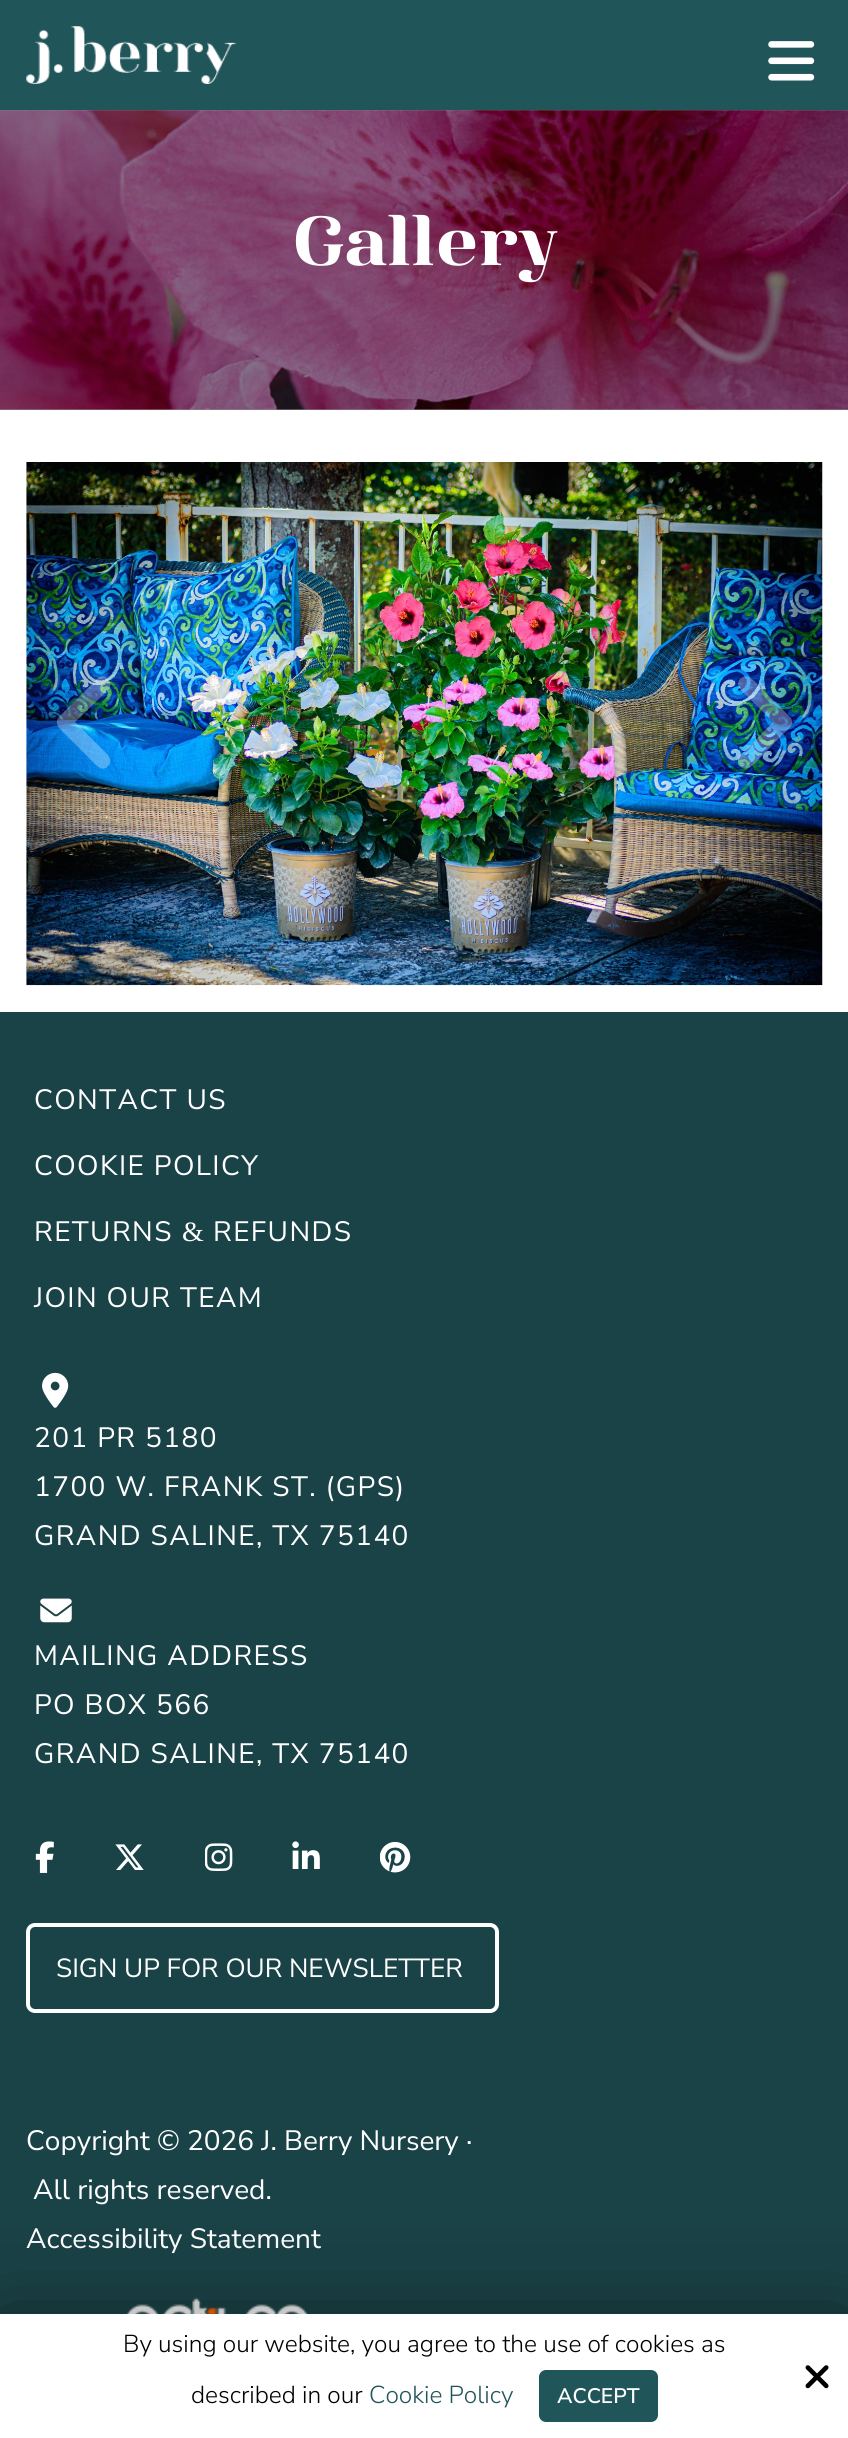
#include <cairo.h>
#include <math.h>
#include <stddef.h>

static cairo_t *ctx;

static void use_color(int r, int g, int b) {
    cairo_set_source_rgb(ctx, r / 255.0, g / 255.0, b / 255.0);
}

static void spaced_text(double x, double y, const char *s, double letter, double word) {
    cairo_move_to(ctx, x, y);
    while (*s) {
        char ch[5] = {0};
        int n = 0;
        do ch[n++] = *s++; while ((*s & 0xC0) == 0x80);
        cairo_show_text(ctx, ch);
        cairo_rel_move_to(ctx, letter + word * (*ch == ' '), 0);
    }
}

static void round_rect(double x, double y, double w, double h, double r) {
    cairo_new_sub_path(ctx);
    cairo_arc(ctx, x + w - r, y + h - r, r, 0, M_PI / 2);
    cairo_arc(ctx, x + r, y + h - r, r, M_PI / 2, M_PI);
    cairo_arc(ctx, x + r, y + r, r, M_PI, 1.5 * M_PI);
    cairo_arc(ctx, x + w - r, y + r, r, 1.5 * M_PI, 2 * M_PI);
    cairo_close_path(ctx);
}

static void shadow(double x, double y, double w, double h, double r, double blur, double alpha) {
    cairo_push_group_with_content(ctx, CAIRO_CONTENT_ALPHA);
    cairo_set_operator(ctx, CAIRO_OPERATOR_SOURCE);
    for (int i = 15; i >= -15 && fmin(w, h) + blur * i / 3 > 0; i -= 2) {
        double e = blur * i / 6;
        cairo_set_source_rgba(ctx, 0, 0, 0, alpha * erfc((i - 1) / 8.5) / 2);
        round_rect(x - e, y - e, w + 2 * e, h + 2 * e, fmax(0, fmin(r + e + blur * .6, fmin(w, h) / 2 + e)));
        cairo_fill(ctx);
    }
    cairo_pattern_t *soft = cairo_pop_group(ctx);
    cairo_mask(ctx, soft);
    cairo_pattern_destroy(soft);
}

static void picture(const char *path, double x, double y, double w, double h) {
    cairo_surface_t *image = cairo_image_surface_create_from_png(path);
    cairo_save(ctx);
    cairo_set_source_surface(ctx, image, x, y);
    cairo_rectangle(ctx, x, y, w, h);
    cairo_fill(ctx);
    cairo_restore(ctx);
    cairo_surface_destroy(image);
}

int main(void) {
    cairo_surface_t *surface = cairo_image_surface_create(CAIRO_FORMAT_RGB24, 848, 2438);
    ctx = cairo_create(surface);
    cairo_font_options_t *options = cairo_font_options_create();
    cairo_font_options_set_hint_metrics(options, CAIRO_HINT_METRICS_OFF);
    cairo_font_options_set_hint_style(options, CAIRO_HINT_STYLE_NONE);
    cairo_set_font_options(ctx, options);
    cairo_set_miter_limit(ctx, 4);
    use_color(255, 255, 255);
    cairo_paint(ctx);
    use_color(143, 143, 143);
    cairo_rectangle(ctx, 0, 110, 848, 300);
    cairo_fill(ctx);
    use_color(32, 85, 90);
    cairo_rectangle(ctx, 0, 0, 848, 110);
    cairo_fill(ctx);
    picture("img1.png", 26, 26, 211, 58);
    picture("img2.png", 768, 41, 47, 40);
    picture("img3.png", 0, 110, 848, 300);
    cairo_select_font_face(ctx, "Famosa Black", CAIRO_FONT_SLANT_NORMAL, CAIRO_FONT_WEIGHT_NORMAL);
    cairo_set_font_size(ctx, 73.5);
    use_color(255, 255, 255);
    cairo_move_to(ctx, 292, 265);
    cairo_show_text(ctx, "Gallery");
    picture("img4.png", 26, 462, 797, 524);
    cairo_set_source_rgba(ctx, 1, 1, 1, 0.3);
    cairo_new_path(ctx);
    cairo_move_to(ctx, 59, 717);
    cairo_curve_to(ctx, 53, 724, 61, 730, 65, 734);
    cairo_line_to(ctx, 91, 760);
    cairo_curve_to(ctx, 95, 764, 102, 773, 108, 766);
    cairo_curve_to(ctx, 110, 764, 111, 762, 110, 759);
    cairo_curve_to(ctx, 109, 755, 105, 752, 103, 750);
    cairo_line_to(ctx, 75, 722);
    cairo_line_to(ctx, 103, 695);
    cairo_curve_to(ctx, 107, 691, 113, 687, 109, 680);
    cairo_curve_to(ctx, 109, 679, 107, 678, 106, 677);
    cairo_curve_to(ctx, 99, 674, 95, 681, 91, 685);
    cairo_close_path(ctx);
    cairo_fill(ctx);
    cairo_new_path(ctx);
    cairo_move_to(ctx, 790, 717);
    cairo_curve_to(ctx, 796, 724, 788, 730, 783, 734);
    cairo_line_to(ctx, 758, 760);
    cairo_curve_to(ctx, 754, 764, 747, 773, 740, 766);
    cairo_curve_to(ctx, 738, 764, 738, 762, 738, 759);
    cairo_curve_to(ctx, 739, 755, 743, 752, 746, 750);
    cairo_line_to(ctx, 773, 722);
    cairo_line_to(ctx, 746, 695);
    cairo_curve_to(ctx, 742, 691, 736, 687, 739, 680);
    cairo_curve_to(ctx, 740, 679, 741, 678, 743, 677);
    cairo_curve_to(ctx, 749, 674, 754, 681, 758, 685);
    cairo_close_path(ctx);
    cairo_fill(ctx);
    use_color(26, 67, 71);
    cairo_rectangle(ctx, 0, 1012, 848, 1302);
    cairo_fill(ctx);
    cairo_select_font_face(ctx, "Nunito Sans", CAIRO_FONT_SLANT_NORMAL, CAIRO_FONT_WEIGHT_NORMAL);
    cairo_set_font_size(ctx, 28);
    use_color(255, 255, 255);
    spaced_text(34, 1109, "CONTACT US", 1.4, 0);
    spaced_text(34, 1175, "COOKIE POLICY", 1.4, 0);
    spaced_text(34, 1241, "RETURNS", 1.4, 0);
    cairo_select_font_face(ctx, "Liberation Serif", CAIRO_FONT_SLANT_NORMAL, CAIRO_FONT_WEIGHT_NORMAL);
    spaced_text(182, 1241, "&", 1.4, 0);
    cairo_select_font_face(ctx, "Nunito Sans", CAIRO_FONT_SLANT_NORMAL, CAIRO_FONT_WEIGHT_NORMAL);
    spaced_text(213, 1241, "REFUNDS", 1.4, 0);
    spaced_text(34, 1307, "JOIN OUR TEAM", 1.4, 0);
    picture("img5.png", 42, 1372, 27, 36);
    spaced_text(34, 1447, "201 PR 5180", 1.4, 0);
    spaced_text(34, 1496, "1700 W. FRANK ST. (GPS)", 1.4, 0);
    spaced_text(34, 1545, "GRAND SALINE, TX 75140", 1.4, 0);
    picture("img6.png", 40, 1598, 32, 25);
    spaced_text(34, 1665, "MAILING ADDRESS", 1.4, 0);
    spaced_text(34, 1714, "PO BOX 566", 1.4, 0);
    spaced_text(34, 1763, "GRAND SALINE, TX 75140", 1.4, 0);
    picture("img7.png", 35, 1841, 19, 32);
    picture("img8.png", 115, 1844, 29, 26);
    picture("img9.png", 205, 1843, 28, 28);
    picture("img10.png", 292, 1841, 28, 28);
    picture("img11.png", 380, 1841, 31, 32);
    round_rect(28, 1925, 469, 86, 7);
    cairo_set_line_width(ctx, 4);
    cairo_stroke(ctx);
    cairo_set_font_size(ctx, 26.25);
    cairo_move_to(ctx, 56, 1977);
    cairo_show_text(ctx, "SIGN UP FOR OUR NEWSLETTER");
    cairo_set_font_size(ctx, 28);
    cairo_move_to(ctx, 26, 2150);
    cairo_show_text(ctx, "Copyright © 2026 J. Berry Nursery ·");
    cairo_move_to(ctx, 33, 2199);
    cairo_show_text(ctx, "All rights reserved.");
    cairo_move_to(ctx, 26, 2248);
    cairo_show_text(ctx, "Accessibility Statement");
    picture("img12.png", 126, 2297, 183, 17);
    use_color(0, 0, 0);
    shadow(0, 2322, 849, 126, 0, 44, 0.5);
    use_color(255, 255, 255);
    cairo_rectangle(ctx, 0, 2314, 848, 124);
    cairo_fill(ctx);
    cairo_select_font_face(ctx, "Nunito Sans Light", CAIRO_FONT_SLANT_NORMAL, CAIRO_FONT_WEIGHT_NORMAL);
    cairo_set_font_size(ctx, 24.5);
    use_color(0, 0, 0);
    cairo_move_to(ctx, 123, 2352);
    cairo_show_text(ctx, "By using our website, you agree to the use of cookies as");
    cairo_move_to(ctx, 191, 2403);
    cairo_show_text(ctx, "described in our");
    use_color(32, 85, 90);
    cairo_move_to(ctx, 369, 2403);
    cairo_show_text(ctx, "Cookie Policy");
    round_rect(539, 2370, 119, 52, 7);
    cairo_fill(ctx);
    cairo_select_font_face(ctx, "Nunito Sans SemiBold", CAIRO_FONT_SLANT_NORMAL, CAIRO_FONT_WEIGHT_NORMAL);
    cairo_set_font_size(ctx, 21);
    use_color(255, 255, 255);
    cairo_move_to(ctx, 557, 2403);
    cairo_show_text(ctx, "ACCEPT");
    picture("img13.png", 805, 2365, 24, 24);
    cairo_surface_write_to_png(surface, "result.png");
    cairo_font_options_destroy(options);
    cairo_destroy(ctx);
    cairo_surface_destroy(surface);
    return 0;
}
